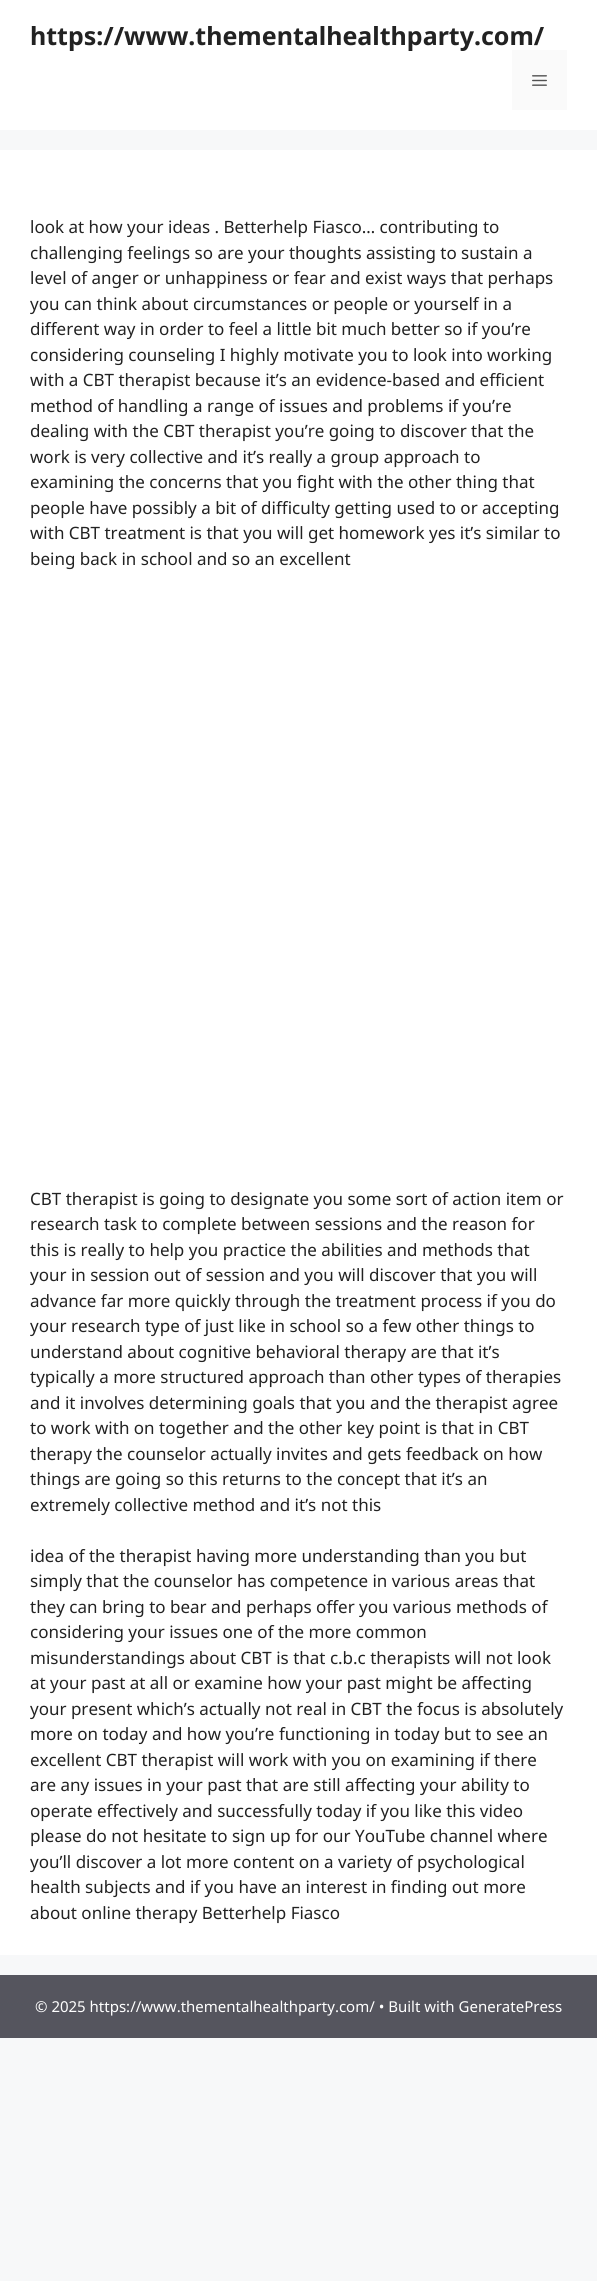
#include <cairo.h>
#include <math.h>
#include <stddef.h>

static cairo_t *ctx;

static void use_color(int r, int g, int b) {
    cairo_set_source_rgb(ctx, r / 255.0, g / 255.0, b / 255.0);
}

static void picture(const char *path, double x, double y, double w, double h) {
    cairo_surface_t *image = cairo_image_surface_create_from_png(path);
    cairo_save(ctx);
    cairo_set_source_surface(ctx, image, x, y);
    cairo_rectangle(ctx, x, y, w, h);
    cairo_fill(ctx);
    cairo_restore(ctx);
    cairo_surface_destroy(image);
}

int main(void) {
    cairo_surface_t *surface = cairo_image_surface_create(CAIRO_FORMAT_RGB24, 597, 2281);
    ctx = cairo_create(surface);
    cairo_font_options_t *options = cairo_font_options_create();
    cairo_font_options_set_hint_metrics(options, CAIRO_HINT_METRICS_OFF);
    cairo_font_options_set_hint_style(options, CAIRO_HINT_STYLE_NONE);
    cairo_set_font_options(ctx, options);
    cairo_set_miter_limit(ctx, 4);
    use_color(247, 248, 249);
    cairo_paint(ctx);
    use_color(255, 255, 255);
    cairo_rectangle(ctx, 0, 0, 597, 130);
    cairo_fill(ctx);
    cairo_select_font_face(ctx, "Noto Sans", CAIRO_FONT_SLANT_NORMAL, CAIRO_FONT_WEIGHT_BOLD);
    cairo_set_font_size(ctx, 25);
    use_color(34, 34, 34);
    cairo_move_to(ctx, 30, 45);
    cairo_show_text(ctx, "https://www.thementalhealthparty.com/");
    use_color(250, 250, 250);
    cairo_rectangle(ctx, 512, 50, 55, 60);
    cairo_fill(ctx);
    picture("img1.png", 532, 75, 15, 11);
    use_color(255, 255, 255);
    cairo_rectangle(ctx, 0, 150, 597, 1805);
    cairo_fill(ctx);
    cairo_select_font_face(ctx, "Noto Sans", CAIRO_FONT_SLANT_NORMAL, CAIRO_FONT_WEIGHT_NORMAL);
    cairo_set_font_size(ctx, 17);
    use_color(34, 34, 34);
    cairo_move_to(ctx, 30, 233);
    cairo_show_text(ctx, "look at how your ideas . Betterhelp Fiasco… contributing to");
    cairo_move_to(ctx, 30, 259);
    cairo_show_text(ctx, "challenging feelings so are your thoughts assisting to sustain a");
    cairo_move_to(ctx, 30, 284);
    cairo_show_text(ctx, "level of anger or unhappiness or fear and exist ways that perhaps");
    cairo_move_to(ctx, 30, 310);
    cairo_show_text(ctx, "you can think about circumstances or people or yourself in a");
    cairo_move_to(ctx, 30, 335);
    cairo_show_text(ctx, "different way in order to feel a little bit much better so if you’re");
    cairo_move_to(ctx, 30, 361);
    cairo_show_text(ctx, "considering counseling I highly motivate you to look into working");
    cairo_move_to(ctx, 30, 386);
    cairo_show_text(ctx, "with a CBT therapist because it’s an evidence-based and efficient");
    cairo_move_to(ctx, 30, 412);
    cairo_show_text(ctx, "method of handling a range of issues and problems if you’re");
    cairo_move_to(ctx, 30, 437);
    cairo_show_text(ctx, "dealing with the CBT therapist you’re going to discover that the");
    cairo_move_to(ctx, 30, 463);
    cairo_show_text(ctx, "work is very collective and it’s really a group approach to");
    cairo_move_to(ctx, 30, 488);
    cairo_show_text(ctx, "examining the concerns that you fight with the other thing that");
    cairo_move_to(ctx, 30, 514);
    cairo_show_text(ctx, "people have possibly a bit of difficulty getting used to or accepting");
    cairo_move_to(ctx, 30, 539);
    cairo_show_text(ctx, "with CBT treatment is that you will get homework yes it’s similar to");
    cairo_move_to(ctx, 30, 565);
    cairo_show_text(ctx, "being back in school and so an excellent");
    cairo_move_to(ctx, 30, 1205);
    cairo_show_text(ctx, "CBT therapist is going to designate you some sort of action item or");
    cairo_move_to(ctx, 30, 1230);
    cairo_show_text(ctx, "research task to complete between sessions and the reason for");
    cairo_move_to(ctx, 30, 1256);
    cairo_show_text(ctx, "this is really to help you practice the abilities and methods that");
    cairo_move_to(ctx, 30, 1281);
    cairo_show_text(ctx, "your in session out of session and you will discover that you will");
    cairo_move_to(ctx, 30, 1307);
    cairo_show_text(ctx, "advance far more quickly through the treatment process if you do");
    cairo_move_to(ctx, 30, 1332);
    cairo_show_text(ctx, "your research type of just like in school so a few other things to");
    cairo_move_to(ctx, 30, 1358);
    cairo_show_text(ctx, "understand about cognitive behavioral therapy are that it’s");
    cairo_move_to(ctx, 30, 1383);
    cairo_show_text(ctx, "typically a more structured approach than other types of therapies");
    cairo_move_to(ctx, 30, 1409);
    cairo_show_text(ctx, "and it involves determining goals that you and the therapist agree");
    cairo_move_to(ctx, 30, 1434);
    cairo_show_text(ctx, "to work with on together and the other key point is that in CBT");
    cairo_move_to(ctx, 30, 1460);
    cairo_show_text(ctx, "therapy the counselor actually invites and gets feedback on how");
    cairo_move_to(ctx, 30, 1485);
    cairo_show_text(ctx, "things are going so this returns to the concept that it’s an");
    cairo_move_to(ctx, 30, 1511);
    cairo_show_text(ctx, "extremely collective method and it’s not this");
    cairo_move_to(ctx, 30, 1562);
    cairo_show_text(ctx, "idea of the therapist having more understanding than you but");
    cairo_move_to(ctx, 30, 1587);
    cairo_show_text(ctx, "simply that the counselor has competence in various areas that");
    cairo_move_to(ctx, 30, 1613);
    cairo_show_text(ctx, "they can bring to bear and perhaps offer you various methods of");
    cairo_move_to(ctx, 30, 1638);
    cairo_show_text(ctx, "considering your issues one of the more common");
    cairo_move_to(ctx, 30, 1664);
    cairo_show_text(ctx, "misunderstandings about CBT is that c.b.c therapists will not look");
    cairo_move_to(ctx, 30, 1689);
    cairo_show_text(ctx, "at your past at all or examine how your past might be affecting");
    cairo_move_to(ctx, 30, 1715);
    cairo_show_text(ctx, "your present which’s actually not real in CBT the focus is absolutely");
    cairo_move_to(ctx, 30, 1740);
    cairo_show_text(ctx, "more on today and how you’re functioning in today but to see an");
    cairo_move_to(ctx, 30, 1766);
    cairo_show_text(ctx, "excellent CBT therapist will work with you on examining if there");
    cairo_move_to(ctx, 30, 1791);
    cairo_show_text(ctx, "are any issues in your past that are still affecting your ability to");
    cairo_move_to(ctx, 30, 1817);
    cairo_show_text(ctx, "operate effectively and successfully today if you like this video");
    cairo_move_to(ctx, 30, 1842);
    cairo_show_text(ctx, "please do not hesitate to sign up for our YouTube channel where");
    cairo_move_to(ctx, 30, 1868);
    cairo_show_text(ctx, "you’ll discover a lot more content on a variety of psychological");
    cairo_move_to(ctx, 30, 1893);
    cairo_show_text(ctx, "health subjects and if you have an interest in finding out more");
    cairo_move_to(ctx, 30, 1919);
    cairo_show_text(ctx, "about online therapy Betterhelp Fiasco");
    use_color(85, 85, 94);
    cairo_rectangle(ctx, 0, 1975, 597, 63);
    cairo_fill(ctx);
    cairo_set_font_size(ctx, 15);
    use_color(255, 255, 255);
    cairo_move_to(ctx, 35, 2012);
    cairo_show_text(ctx, "© 2025 https://www.thementalhealthparty.com/ • Built with GeneratePress");
    cairo_surface_write_to_png(surface, "result.png");
    cairo_font_options_destroy(options);
    cairo_destroy(ctx);
    cairo_surface_destroy(surface);
    return 0;
}
